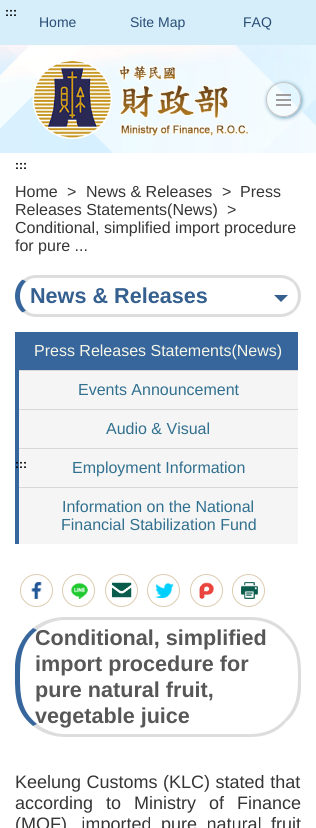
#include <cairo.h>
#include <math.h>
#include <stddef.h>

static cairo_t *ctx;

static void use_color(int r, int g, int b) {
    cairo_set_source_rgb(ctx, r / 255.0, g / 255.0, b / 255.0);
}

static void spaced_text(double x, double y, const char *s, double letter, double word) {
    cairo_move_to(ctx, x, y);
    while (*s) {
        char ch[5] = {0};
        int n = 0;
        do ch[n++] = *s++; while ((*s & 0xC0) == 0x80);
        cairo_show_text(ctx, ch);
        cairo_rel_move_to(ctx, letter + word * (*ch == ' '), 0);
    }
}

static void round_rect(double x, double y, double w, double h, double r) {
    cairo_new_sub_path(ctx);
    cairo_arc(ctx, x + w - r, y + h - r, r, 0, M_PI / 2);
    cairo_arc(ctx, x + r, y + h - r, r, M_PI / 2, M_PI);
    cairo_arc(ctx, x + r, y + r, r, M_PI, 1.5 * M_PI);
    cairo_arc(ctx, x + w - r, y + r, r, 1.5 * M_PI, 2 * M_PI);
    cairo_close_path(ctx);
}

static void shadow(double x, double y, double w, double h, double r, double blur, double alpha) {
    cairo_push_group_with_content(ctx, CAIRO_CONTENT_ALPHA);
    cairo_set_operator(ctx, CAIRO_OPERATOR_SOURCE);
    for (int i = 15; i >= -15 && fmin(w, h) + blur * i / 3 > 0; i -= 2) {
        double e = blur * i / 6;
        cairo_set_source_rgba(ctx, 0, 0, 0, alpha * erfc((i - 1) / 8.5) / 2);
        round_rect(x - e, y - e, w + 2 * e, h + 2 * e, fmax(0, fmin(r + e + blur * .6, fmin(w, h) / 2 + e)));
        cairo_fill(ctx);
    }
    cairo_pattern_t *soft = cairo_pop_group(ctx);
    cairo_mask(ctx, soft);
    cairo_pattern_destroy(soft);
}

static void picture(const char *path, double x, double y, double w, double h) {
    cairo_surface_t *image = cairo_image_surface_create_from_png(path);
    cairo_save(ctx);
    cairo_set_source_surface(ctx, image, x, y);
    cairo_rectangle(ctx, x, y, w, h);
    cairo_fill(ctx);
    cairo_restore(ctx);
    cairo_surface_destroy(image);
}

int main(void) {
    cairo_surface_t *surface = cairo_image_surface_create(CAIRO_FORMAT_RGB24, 316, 828);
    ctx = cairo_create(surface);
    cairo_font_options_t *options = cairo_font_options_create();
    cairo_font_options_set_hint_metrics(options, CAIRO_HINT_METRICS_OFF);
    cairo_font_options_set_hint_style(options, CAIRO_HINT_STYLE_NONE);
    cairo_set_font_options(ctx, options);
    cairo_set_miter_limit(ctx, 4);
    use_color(255, 255, 255);
    cairo_paint(ctx);
    use_color(214, 238, 250);
    cairo_rectangle(ctx, 0, 0, 316, 45);
    cairo_fill(ctx);
    picture("img1.png", 0, 45, 316, 108);
    cairo_select_font_face(ctx, "Liberation Sans", CAIRO_FONT_SLANT_NORMAL, CAIRO_FONT_WEIGHT_BOLD);
    cairo_set_font_size(ctx, 12);
    use_color(0, 0, 0);
    cairo_move_to(ctx, 5, 16);
    cairo_show_text(ctx, ":::");
    cairo_select_font_face(ctx, "Liberation Sans", CAIRO_FONT_SLANT_NORMAL, CAIRO_FONT_WEIGHT_NORMAL);
    cairo_set_font_size(ctx, 14);
    use_color(41, 77, 118);
    cairo_move_to(ctx, 39, 27);
    cairo_show_text(ctx, "Home");
    cairo_move_to(ctx, 130, 27);
    cairo_show_text(ctx, "Site Map");
    cairo_move_to(ctx, 243, 27);
    cairo_show_text(ctx, "FAQ");
    picture("img2.png", 32, 60, 217, 79);
    cairo_save(ctx);
    cairo_set_fill_rule(ctx, CAIRO_FILL_RULE_EVEN_ODD);
    cairo_new_path(ctx);
    cairo_move_to(ctx, 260, 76);
    cairo_line_to(ctx, 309, 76);
    cairo_line_to(ctx, 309, 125);
    cairo_line_to(ctx, 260, 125);
    cairo_close_path(ctx);
    cairo_move_to(ctx, 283.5, 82);
    cairo_curve_to(ctx, 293, 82, 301, 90, 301, 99.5);
    cairo_curve_to(ctx, 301, 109, 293, 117, 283.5, 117);
    cairo_curve_to(ctx, 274, 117, 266, 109, 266, 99.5);
    cairo_curve_to(ctx, 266, 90, 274, 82, 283.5, 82);
    cairo_close_path(ctx);
    cairo_clip(ctx);
    use_color(109, 161, 187);
    shadow(267, 83, 35, 35, 17.5, 2, 1);
    cairo_restore(ctx);
    cairo_arc(ctx, 283.5, 99.5, 17, 0, 2 * M_PI);
    use_color(197, 196, 196);
    cairo_set_line_width(ctx, 1);
    cairo_stroke(ctx);
    use_color(158, 156, 156);
    cairo_rectangle(ctx, 276, 94, 15, 2);
    cairo_fill(ctx);
    cairo_rectangle(ctx, 276, 99, 15, 2);
    cairo_fill(ctx);
    cairo_rectangle(ctx, 276, 104, 15, 2);
    cairo_fill(ctx);
    cairo_select_font_face(ctx, "Liberation Sans", CAIRO_FONT_SLANT_NORMAL, CAIRO_FONT_WEIGHT_BOLD);
    cairo_set_font_size(ctx, 12);
    use_color(0, 0, 0);
    cairo_move_to(ctx, 15, 169);
    cairo_show_text(ctx, ":::");
    use_color(221, 221, 221);
    cairo_new_path(ctx);
    cairo_move_to(ctx, 36, 275);
    cairo_curve_to(ctx, 31, 275, 26, 277, 23, 280);
    cairo_line_to(ctx, 26, 282);
    cairo_curve_to(ctx, 29, 279, 32, 278, 36, 278);
    cairo_line_to(ctx, 280, 278);
    cairo_curve_to(ctx, 285, 278, 290, 280, 293, 283);
    cairo_line_to(ctx, 295, 281);
    cairo_curve_to(ctx, 291, 277, 286, 275, 280, 275);
    cairo_close_path(ctx);
    cairo_fill(ctx);
    cairo_new_path(ctx);
    cairo_move_to(ctx, 295, 281);
    cairo_curve_to(ctx, 303, 289, 303, 303, 295, 311);
    cairo_line_to(ctx, 293, 309);
    cairo_curve_to(ctx, 299.5, 302, 299.5, 290, 293, 283);
    cairo_close_path(ctx);
    cairo_fill(ctx);
    cairo_new_path(ctx);
    cairo_move_to(ctx, 36, 317);
    cairo_line_to(ctx, 280, 317);
    cairo_curve_to(ctx, 286, 317, 291, 315, 295, 311);
    cairo_line_to(ctx, 293, 309);
    cairo_curve_to(ctx, 290, 312, 285, 314, 280, 314);
    cairo_line_to(ctx, 36, 314);
    cairo_curve_to(ctx, 32, 314, 29, 313, 26, 310);
    cairo_line_to(ctx, 23, 312);
    cairo_curve_to(ctx, 26, 315, 31, 317, 36, 317);
    cairo_close_path(ctx);
    cairo_fill(ctx);
    use_color(54, 102, 156);
    cairo_new_path(ctx);
    cairo_move_to(ctx, 22.5, 312.5);
    cairo_curve_to(ctx, 12.5, 304.5, 12.5, 287.5, 22.5, 279.5);
    cairo_line_to(ctx, 26, 281.5);
    cairo_curve_to(ctx, 18, 289, 18, 303, 26, 310.5);
    cairo_close_path(ctx);
    cairo_fill(ctx);
    cairo_set_font_size(ctx, 21.6);
    use_color(52, 95, 143);
    cairo_move_to(ctx, 30, 303);
    cairo_show_text(ctx, "News & Releases");
    cairo_new_path(ctx);
    cairo_move_to(ctx, 274, 295);
    cairo_line_to(ctx, 288, 295);
    cairo_line_to(ctx, 281, 302);
    cairo_close_path(ctx);
    cairo_fill(ctx);
    use_color(54, 102, 156);
    cairo_rectangle(ctx, 15, 332, 4, 212);
    cairo_fill(ctx);
    cairo_rectangle(ctx, 19, 332, 279, 38);
    cairo_fill(ctx);
    cairo_select_font_face(ctx, "Liberation Sans", CAIRO_FONT_SLANT_NORMAL, CAIRO_FONT_WEIGHT_NORMAL);
    cairo_set_font_size(ctx, 16);
    use_color(248, 246, 231);
    cairo_move_to(ctx, 34, 356);
    cairo_show_text(ctx, "Press Releases Statements(News)");
    use_color(216, 216, 216);
    cairo_rectangle(ctx, 19, 370, 279, 1);
    cairo_fill(ctx);
    use_color(245, 245, 245);
    cairo_rectangle(ctx, 19, 371, 279, 38);
    cairo_fill(ctx);
    use_color(49, 112, 143);
    cairo_move_to(ctx, 78, 395);
    cairo_show_text(ctx, "Events Announcement");
    use_color(216, 216, 216);
    cairo_rectangle(ctx, 19, 409, 279, 1);
    cairo_fill(ctx);
    use_color(245, 245, 245);
    cairo_rectangle(ctx, 19, 410, 279, 38);
    cairo_fill(ctx);
    use_color(49, 112, 143);
    cairo_move_to(ctx, 106, 434);
    cairo_show_text(ctx, "Audio & Visual");
    use_color(216, 216, 216);
    cairo_rectangle(ctx, 19, 448, 279, 1);
    cairo_fill(ctx);
    use_color(245, 245, 245);
    cairo_rectangle(ctx, 19, 449, 279, 38);
    cairo_fill(ctx);
    use_color(49, 112, 143);
    cairo_move_to(ctx, 72, 473);
    cairo_show_text(ctx, "Employment Information");
    use_color(216, 216, 216);
    cairo_rectangle(ctx, 19, 487, 279, 1);
    cairo_fill(ctx);
    use_color(245, 245, 245);
    cairo_rectangle(ctx, 19, 488, 279, 56);
    cairo_fill(ctx);
    use_color(49, 112, 143);
    cairo_move_to(ctx, 62, 512);
    cairo_show_text(ctx, "Information on the National");
    cairo_move_to(ctx, 61, 530);
    cairo_show_text(ctx, "Financial Stabilization Fund");
    cairo_select_font_face(ctx, "Liberation Sans", CAIRO_FONT_SLANT_NORMAL, CAIRO_FONT_WEIGHT_BOLD);
    cairo_set_font_size(ctx, 12);
    use_color(0, 0, 0);
    cairo_move_to(ctx, 15, 468);
    cairo_show_text(ctx, ":::");
    cairo_new_path(ctx);
    cairo_arc(ctx, 36.5, 590.5, 16, 0, 2 * M_PI);
    use_color(220, 204, 176);
    cairo_stroke(ctx);
    picture("img3.png", 31, 582, 11, 17);
    cairo_arc(ctx, 78.5, 590.5, 16, 0, 2 * M_PI);
    cairo_stroke(ctx);
    picture("img4.png", 71, 583, 17, 16);
    cairo_arc(ctx, 121.5, 590.5, 16, 0, 2 * M_PI);
    cairo_stroke(ctx);
    picture("img5.png", 111, 582, 21, 16);
    cairo_arc(ctx, 163.5, 590.5, 16, 0, 2 * M_PI);
    cairo_stroke(ctx);
    picture("img6.png", 155, 583, 19, 15);
    cairo_arc(ctx, 206.5, 590.5, 16, 0, 2 * M_PI);
    cairo_stroke(ctx);
    picture("img7.png", 199, 582, 15, 17);
    cairo_arc(ctx, 248.5, 590.5, 16, 0, 2 * M_PI);
    cairo_stroke(ctx);
    picture("img8.png", 241, 582, 17, 17);
    use_color(221, 221, 221);
    cairo_new_path(ctx);
    cairo_move_to(ctx, 65, 617);
    cairo_curve_to(ctx, 53, 617, 42, 621, 33, 628);
    cairo_line_to(ctx, 37, 630);
    cairo_curve_to(ctx, 45, 624, 54, 620, 65, 620);
    cairo_line_to(ctx, 251, 620);
    cairo_curve_to(ctx, 264, 620, 276, 625, 284, 634);
    cairo_line_to(ctx, 286, 632);
    cairo_curve_to(ctx, 278, 622, 265, 617, 251, 617);
    cairo_close_path(ctx);
    cairo_fill(ctx);
    cairo_new_path(ctx);
    cairo_move_to(ctx, 301, 687);
    cairo_curve_to(ctx, 301, 666, 303, 648, 286, 632);
    cairo_line_to(ctx, 284, 634);
    cairo_curve_to(ctx, 297, 647, 298, 660, 298, 677);
    cairo_curve_to(ctx, 298, 694, 297, 707, 284, 720);
    cairo_line_to(ctx, 286, 722);
    cairo_curve_to(ctx, 296, 714, 301, 701, 301, 687);
    cairo_close_path(ctx);
    cairo_fill(ctx);
    cairo_new_path(ctx);
    cairo_move_to(ctx, 65, 737);
    cairo_line_to(ctx, 251, 737);
    cairo_curve_to(ctx, 265, 737, 278, 732, 286, 722);
    cairo_line_to(ctx, 284, 720);
    cairo_curve_to(ctx, 276, 729, 264, 734, 251, 734);
    cairo_line_to(ctx, 65, 734);
    cairo_curve_to(ctx, 54, 734, 45, 730, 37, 724);
    cairo_line_to(ctx, 33, 726);
    cairo_curve_to(ctx, 42, 733, 53, 737, 65, 737);
    cairo_close_path(ctx);
    cairo_fill(ctx);
    use_color(54, 102, 156);
    cairo_new_path(ctx);
    cairo_move_to(ctx, 15, 667);
    cairo_curve_to(ctx, 15, 690, 13, 710, 33, 726);
    cairo_line_to(ctx, 37, 724);
    cairo_curve_to(ctx, 21, 711, 20, 696, 20, 677);
    cairo_curve_to(ctx, 20, 658, 21, 643, 37, 630);
    cairo_line_to(ctx, 33, 628);
    cairo_curve_to(ctx, 22, 637, 15, 651, 15, 667);
    cairo_close_path(ctx);
    cairo_fill(ctx);
    cairo_set_font_size(ctx, 21.6);
    use_color(87, 87, 87);
    cairo_move_to(ctx, 35, 645);
    cairo_show_text(ctx, "Conditional, simplified");
    cairo_move_to(ctx, 35, 671);
    cairo_show_text(ctx, "import procedure for");
    cairo_move_to(ctx, 35, 697);
    cairo_show_text(ctx, "pure natural fruit,");
    cairo_move_to(ctx, 35, 723);
    cairo_show_text(ctx, "vegetable juice");
    cairo_select_font_face(ctx, "Liberation Sans", CAIRO_FONT_SLANT_NORMAL, CAIRO_FONT_WEIGHT_NORMAL);
    cairo_set_font_size(ctx, 18);
    use_color(53, 53, 53);
    spaced_text(15, 788, "Keelung Customs (KLC) stated that", 0, 0.5);
    spaced_text(15, 809, "according to Ministry of Finance", 0, 8);
    spaced_text(15, 830, "(MOF), imported pure natural fruit", 0, 4.5);
    cairo_set_font_size(ctx, 16);
    cairo_move_to(ctx, 15, 197);
    cairo_show_text(ctx, "Home");
    cairo_move_to(ctx, 67, 197);
    cairo_show_text(ctx, ">");
    cairo_move_to(ctx, 86, 197);
    cairo_show_text(ctx, "News & Releases");
    cairo_move_to(ctx, 222, 197);
    cairo_show_text(ctx, ">");
    cairo_move_to(ctx, 240, 197);
    cairo_show_text(ctx, "Press");
    cairo_move_to(ctx, 15, 215);
    cairo_show_text(ctx, "Releases Statements(News)");
    cairo_move_to(ctx, 227, 215);
    cairo_show_text(ctx, ">");
    cairo_move_to(ctx, 15, 233);
    cairo_show_text(ctx, "Conditional, simplified import procedure");
    cairo_move_to(ctx, 15, 251);
    cairo_show_text(ctx, "for pure ...");
    cairo_surface_write_to_png(surface, "result.png");
    cairo_font_options_destroy(options);
    cairo_destroy(ctx);
    cairo_surface_destroy(surface);
    return 0;
}
